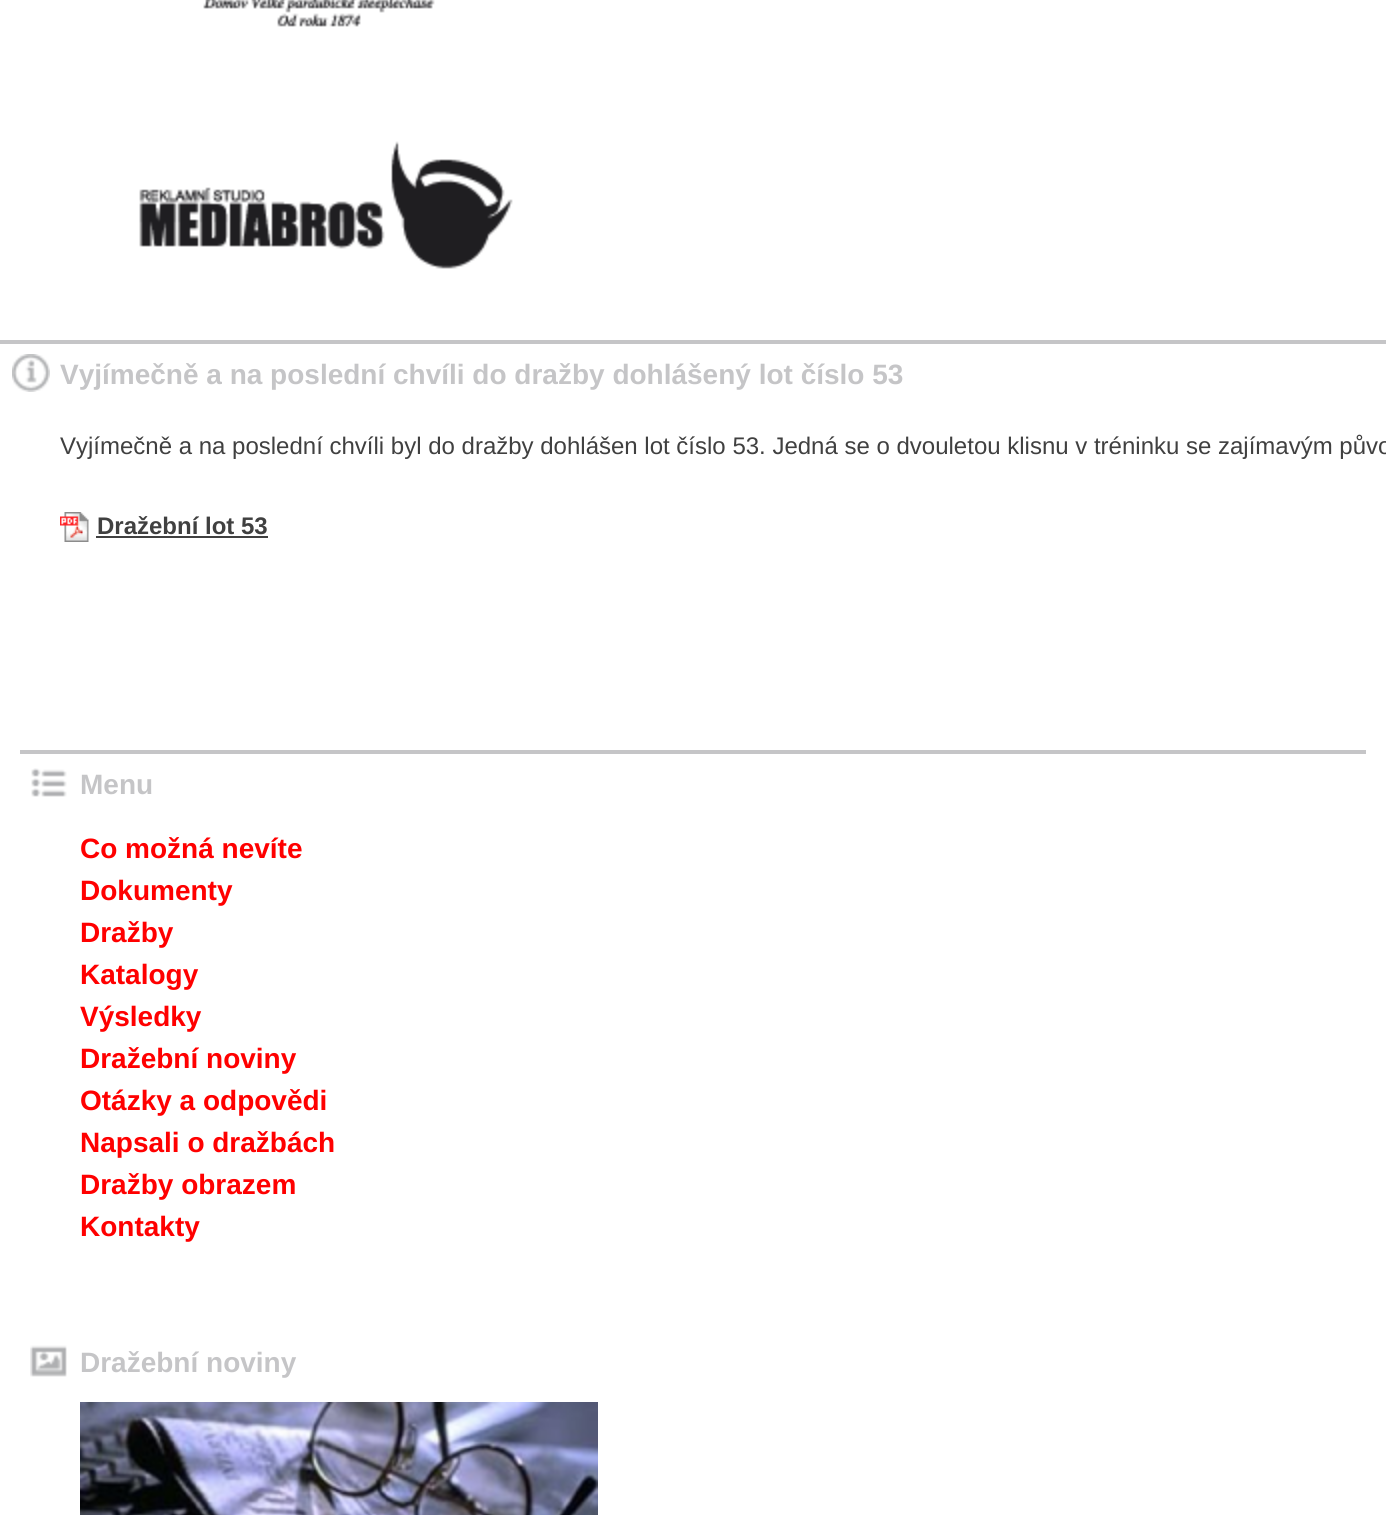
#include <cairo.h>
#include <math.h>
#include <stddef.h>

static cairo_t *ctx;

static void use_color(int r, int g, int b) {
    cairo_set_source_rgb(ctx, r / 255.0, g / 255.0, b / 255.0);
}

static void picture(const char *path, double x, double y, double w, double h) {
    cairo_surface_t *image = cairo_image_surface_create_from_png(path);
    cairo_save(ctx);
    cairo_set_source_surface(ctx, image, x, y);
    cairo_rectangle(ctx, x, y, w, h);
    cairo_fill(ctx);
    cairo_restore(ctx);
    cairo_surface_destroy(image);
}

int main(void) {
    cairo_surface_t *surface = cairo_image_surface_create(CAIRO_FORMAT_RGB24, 1386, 1515);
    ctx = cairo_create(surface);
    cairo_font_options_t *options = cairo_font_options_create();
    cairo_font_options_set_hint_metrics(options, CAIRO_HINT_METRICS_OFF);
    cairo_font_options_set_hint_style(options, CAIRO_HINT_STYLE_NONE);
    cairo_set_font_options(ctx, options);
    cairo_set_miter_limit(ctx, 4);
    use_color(255, 255, 255);
    cairo_paint(ctx);
    picture("img1.png", 203, 0, 232, 27);
    picture("img2.png", 139, 141, 374, 128);
    use_color(197, 197, 199);
    cairo_rectangle(ctx, 0, 340, 1386, 4);
    cairo_fill(ctx);
    picture("img3.png", 12, 354, 38, 38);
    cairo_select_font_face(ctx, "Liberation Sans", CAIRO_FONT_SLANT_NORMAL, CAIRO_FONT_WEIGHT_BOLD);
    cairo_set_font_size(ctx, 28);
    cairo_move_to(ctx, 60, 384);
    cairo_show_text(ctx, "Vyjímečně a na poslední chvíli do dražby dohlášený lot číslo 53");
    cairo_select_font_face(ctx, "Liberation Sans", CAIRO_FONT_SLANT_NORMAL, CAIRO_FONT_WEIGHT_NORMAL);
    cairo_set_font_size(ctx, 24);
    use_color(64, 64, 64);
    cairo_move_to(ctx, 60, 454);
    cairo_show_text(ctx, "Vyjímečně a na poslední chvíli byl do dražby dohlášen lot číslo 53. Jedná se o dvouletou klisnu v tréninku se zajímavým půvo");
    picture("img4.png", 60, 512, 29, 30);
    cairo_select_font_face(ctx, "Liberation Sans", CAIRO_FONT_SLANT_NORMAL, CAIRO_FONT_WEIGHT_BOLD);
    cairo_move_to(ctx, 97, 534);
    cairo_show_text(ctx, "Dražební lot 53");
    cairo_rectangle(ctx, 96, 536, 172, 2);
    cairo_fill(ctx);
    use_color(197, 197, 199);
    cairo_rectangle(ctx, 20, 750, 1346, 4);
    cairo_fill(ctx);
    picture("img5.png", 31, 768, 36, 29);
    cairo_set_font_size(ctx, 28);
    cairo_move_to(ctx, 80, 794);
    cairo_show_text(ctx, "Menu");
    use_color(255, 0, 0);
    cairo_move_to(ctx, 80, 858);
    cairo_show_text(ctx, "Co možná nevíte");
    cairo_move_to(ctx, 80, 900);
    cairo_show_text(ctx, "Dokumenty");
    cairo_move_to(ctx, 80, 942);
    cairo_show_text(ctx, "Dražby");
    cairo_move_to(ctx, 80, 984);
    cairo_show_text(ctx, "Katalogy");
    cairo_move_to(ctx, 80, 1026);
    cairo_show_text(ctx, "Výsledky");
    cairo_move_to(ctx, 80, 1068);
    cairo_show_text(ctx, "Dražební noviny");
    cairo_move_to(ctx, 80, 1110);
    cairo_show_text(ctx, "Otázky a odpovědi");
    cairo_move_to(ctx, 80, 1152);
    cairo_show_text(ctx, "Napsali o dražbách");
    cairo_move_to(ctx, 80, 1194);
    cairo_show_text(ctx, "Dražby obrazem");
    cairo_move_to(ctx, 80, 1236);
    cairo_show_text(ctx, "Kontakty");
    picture("img6.png", 30, 1345, 37, 32);
    use_color(197, 197, 199);
    cairo_move_to(ctx, 80, 1372);
    cairo_show_text(ctx, "Dražební noviny");
    picture("img7.png", 80, 1402, 518, 113);
    cairo_surface_write_to_png(surface, "result.png");
    cairo_font_options_destroy(options);
    cairo_destroy(ctx);
    cairo_surface_destroy(surface);
    return 0;
}
